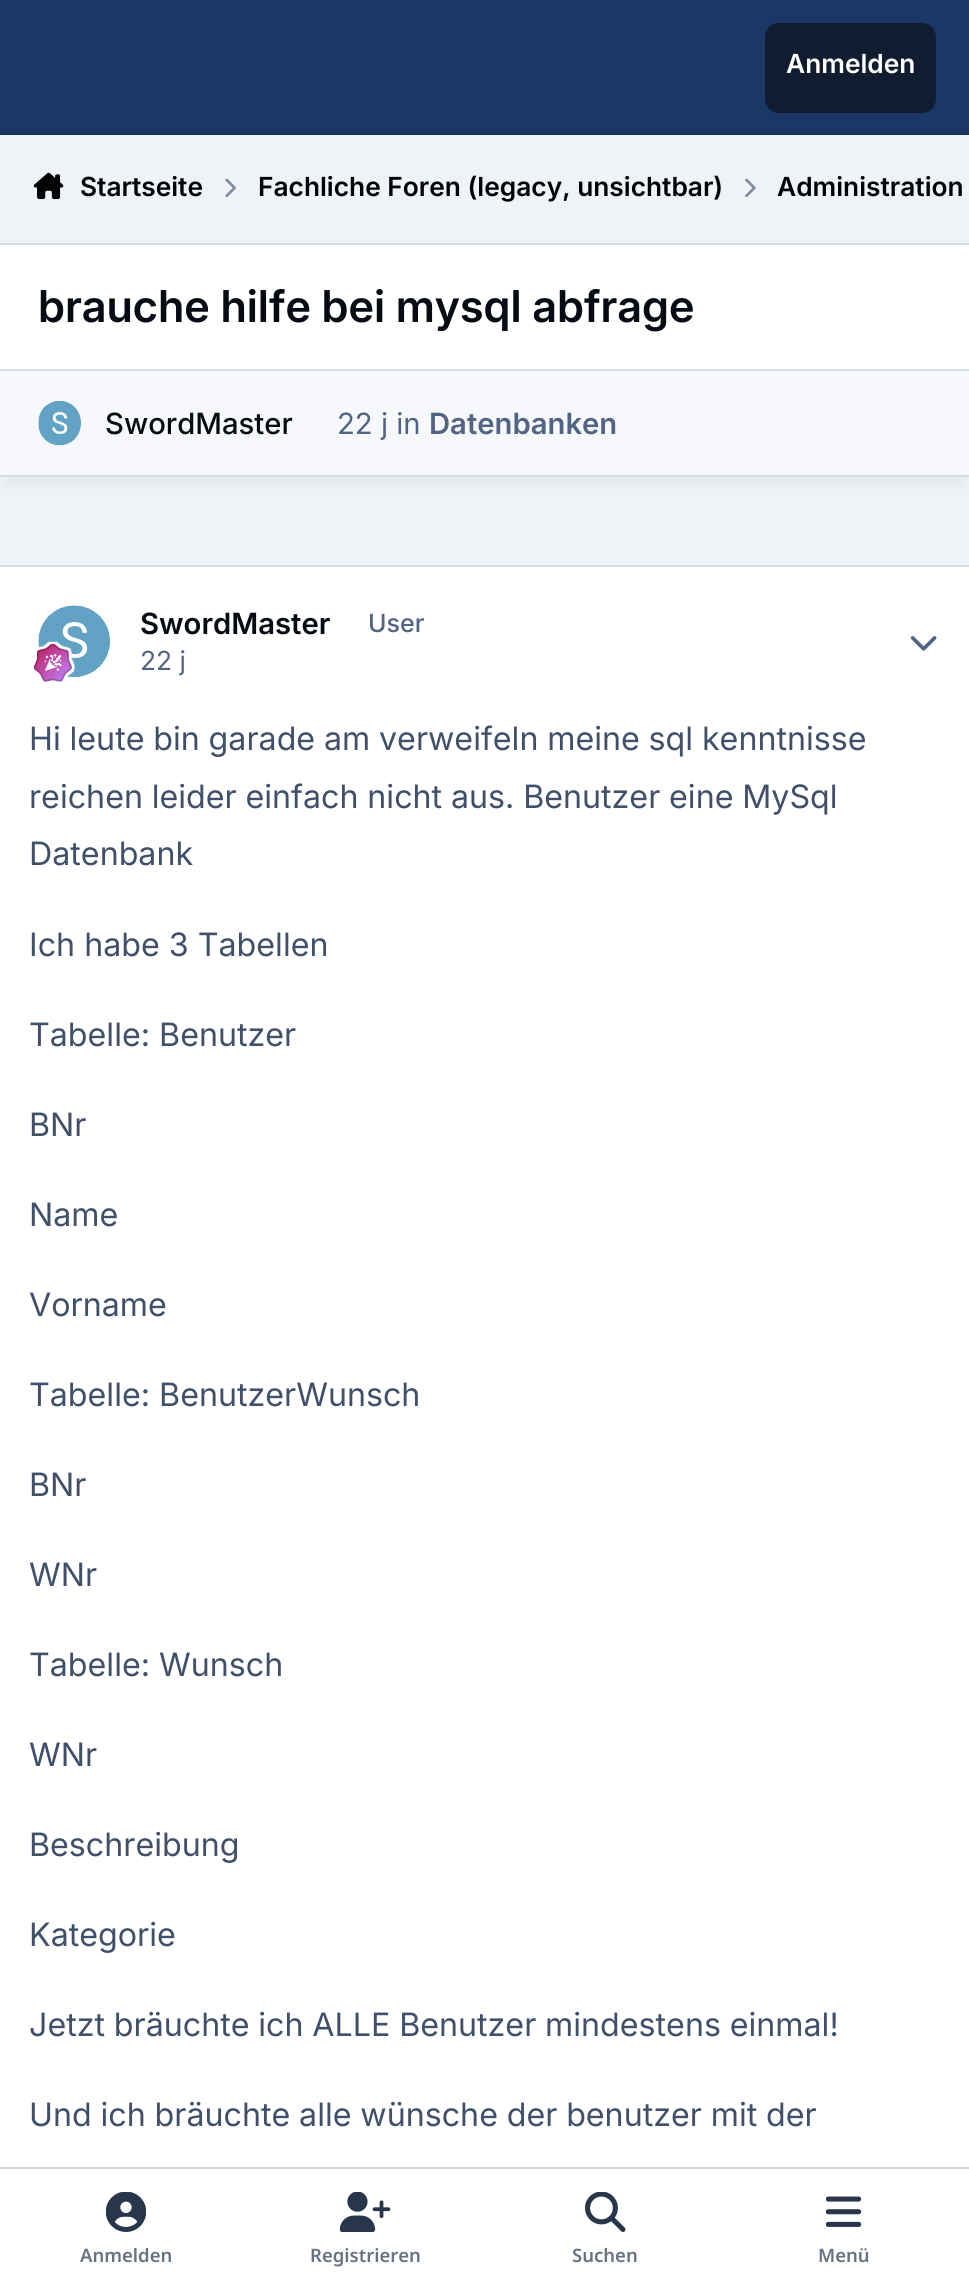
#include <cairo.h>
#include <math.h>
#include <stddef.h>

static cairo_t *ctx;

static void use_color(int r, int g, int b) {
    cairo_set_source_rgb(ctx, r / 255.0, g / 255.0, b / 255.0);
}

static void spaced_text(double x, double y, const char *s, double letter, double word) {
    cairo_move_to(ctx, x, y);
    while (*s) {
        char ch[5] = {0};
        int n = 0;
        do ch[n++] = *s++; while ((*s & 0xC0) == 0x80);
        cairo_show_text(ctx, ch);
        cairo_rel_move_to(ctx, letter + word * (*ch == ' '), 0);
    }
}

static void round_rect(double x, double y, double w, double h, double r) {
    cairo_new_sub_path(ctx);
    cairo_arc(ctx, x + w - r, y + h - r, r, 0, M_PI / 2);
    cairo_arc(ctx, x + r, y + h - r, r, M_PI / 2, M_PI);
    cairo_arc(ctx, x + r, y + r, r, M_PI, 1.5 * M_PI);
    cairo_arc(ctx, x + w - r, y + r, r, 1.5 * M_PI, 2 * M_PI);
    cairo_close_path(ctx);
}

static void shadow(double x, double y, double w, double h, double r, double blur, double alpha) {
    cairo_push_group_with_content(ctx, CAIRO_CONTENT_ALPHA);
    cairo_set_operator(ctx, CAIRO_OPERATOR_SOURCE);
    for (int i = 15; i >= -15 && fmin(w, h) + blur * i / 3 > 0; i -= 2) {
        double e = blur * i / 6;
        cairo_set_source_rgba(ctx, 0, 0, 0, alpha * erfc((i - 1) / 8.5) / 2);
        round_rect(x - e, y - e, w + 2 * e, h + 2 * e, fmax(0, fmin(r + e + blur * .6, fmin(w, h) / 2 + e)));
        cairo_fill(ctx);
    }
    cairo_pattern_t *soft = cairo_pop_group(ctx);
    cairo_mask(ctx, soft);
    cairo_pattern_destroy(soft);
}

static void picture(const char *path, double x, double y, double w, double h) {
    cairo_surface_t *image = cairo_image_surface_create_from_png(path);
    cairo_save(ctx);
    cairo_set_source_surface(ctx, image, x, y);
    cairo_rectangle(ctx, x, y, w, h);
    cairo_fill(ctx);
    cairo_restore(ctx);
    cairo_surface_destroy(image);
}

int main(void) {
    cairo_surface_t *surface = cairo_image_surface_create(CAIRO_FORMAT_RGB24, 969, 2291);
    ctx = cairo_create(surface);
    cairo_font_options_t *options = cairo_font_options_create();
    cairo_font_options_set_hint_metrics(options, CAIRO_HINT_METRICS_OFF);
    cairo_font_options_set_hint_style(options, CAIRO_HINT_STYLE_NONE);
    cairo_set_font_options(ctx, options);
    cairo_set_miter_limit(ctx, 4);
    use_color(239, 242, 247);
    cairo_paint(ctx);
    use_color(26, 55, 102);
    cairo_rectangle(ctx, 0, 0, 969, 133);
    cairo_fill(ctx);
    use_color(23, 48, 90);
    cairo_rectangle(ctx, 0, 133, 969, 2);
    cairo_fill(ctx);
    use_color(17, 28, 49);
    round_rect(765, 23, 171, 90, 14);
    cairo_fill(ctx);
    cairo_select_font_face(ctx, "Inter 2 SemiBold", CAIRO_FONT_SLANT_NORMAL, CAIRO_FONT_WEIGHT_NORMAL);
    cairo_set_font_size(ctx, 26.3);
    use_color(255, 255, 255);
    cairo_move_to(ctx, 786, 73);
    cairo_show_text(ctx, "Anmelden");
    picture("img1.png", 33, 172, 31, 28);
    use_color(2, 3, 5);
    cairo_move_to(ctx, 80, 196);
    cairo_show_text(ctx, "Startseite");
    picture("img2.png", 225, 178, 11, 19);
    cairo_move_to(ctx, 258, 196);
    cairo_show_text(ctx, "Fachliche Foren (legacy, unsichtbar)");
    picture("img3.png", 745, 178, 11, 19);
    cairo_move_to(ctx, 777, 196);
    cairo_show_text(ctx, "Administration");
    use_color(1, 3, 10);
    shadow(7, 263, 956, 221, 0, 8, 0.05);
    use_color(255, 255, 255);
    cairo_rectangle(ctx, 0, 245, 969, 124);
    cairo_fill(ctx);
    use_color(213, 219, 230);
    cairo_rectangle(ctx, 0, 243, 969, 2);
    cairo_fill(ctx);
    cairo_rectangle(ctx, 0, 475, 969, 2);
    cairo_fill(ctx);
    cairo_select_font_face(ctx, "Inter SemiBold", CAIRO_FONT_SLANT_NORMAL, CAIRO_FONT_WEIGHT_NORMAL);
    cairo_set_font_size(ctx, 43.9);
    use_color(6, 11, 20);
    cairo_move_to(ctx, 38, 322);
    cairo_show_text(ctx, "brauche hilfe bei mysql abfrage");
    use_color(247, 248, 251);
    cairo_rectangle(ctx, 0, 371, 969, 104);
    cairo_fill(ctx);
    use_color(215, 223, 234);
    cairo_rectangle(ctx, 0, 369, 969, 2);
    cairo_fill(ctx);
    use_color(229, 234, 242);
    round_rect(38, 401, 43, 45, 21.5);
    cairo_fill(ctx);
    picture("img4.png", 38, 401, 43, 45);
    cairo_select_font_face(ctx, "Inter Medium", CAIRO_FONT_SLANT_NORMAL, CAIRO_FONT_WEIGHT_NORMAL);
    cairo_set_font_size(ctx, 29.25);
    use_color(6, 11, 20);
    cairo_move_to(ctx, 105, 434);
    cairo_show_text(ctx, "SwordMaster");
    cairo_select_font_face(ctx, "Inter", CAIRO_FONT_SLANT_NORMAL, CAIRO_FONT_WEIGHT_NORMAL);
    use_color(81, 100, 131);
    cairo_move_to(ctx, 337, 434);
    cairo_show_text(ctx, "22 j in");
    cairo_select_font_face(ctx, "Inter 2 SemiBold", CAIRO_FONT_SLANT_NORMAL, CAIRO_FONT_WEIGHT_NORMAL);
    cairo_move_to(ctx, 429, 434);
    cairo_show_text(ctx, "Datenbanken");
    use_color(255, 255, 255);
    cairo_rectangle(ctx, 0, 567, 969, 1724);
    cairo_fill(ctx);
    use_color(213, 219, 230);
    cairo_rectangle(ctx, 0, 565, 969, 2);
    cairo_fill(ctx);
    use_color(229, 234, 242);
    cairo_arc(ctx, 74, 641, 36, 0, 2 * M_PI);
    cairo_fill(ctx);
    picture("img5.png", 38, 605, 72, 72);
    picture("img6.png", 34, 641, 41, 41);
    use_color(6, 11, 20);
    cairo_move_to(ctx, 140, 634);
    cairo_show_text(ctx, "SwordMaster");
    cairo_select_font_face(ctx, "Inter Medium", CAIRO_FONT_SLANT_NORMAL, CAIRO_FONT_WEIGHT_NORMAL);
    cairo_set_font_size(ctx, 25);
    use_color(81, 100, 131);
    cairo_move_to(ctx, 368, 632);
    cairo_show_text(ctx, "User");
    cairo_select_font_face(ctx, "Inter", CAIRO_FONT_SLANT_NORMAL, CAIRO_FONT_WEIGHT_NORMAL);
    cairo_set_font_size(ctx, 26.3);
    cairo_move_to(ctx, 140, 670);
    cairo_show_text(ctx, "22 j");
    picture("img7.png", 910, 636, 27, 15);
    cairo_set_font_size(ctx, 32.2);
    use_color(64, 80, 107);
    spaced_text(29, 750, "Hi leute bin garade am verweifeln meine sql kenntnisse", 0, -0.25);
    spaced_text(29, 808, "reichen leider einfach nicht aus. Benutzer eine MySql", 0, -0.25);
    cairo_move_to(ctx, 29, 865);
    cairo_show_text(ctx, "Datenbank");
    cairo_move_to(ctx, 29, 956);
    cairo_show_text(ctx, "Ich habe 3 Tabellen");
    cairo_move_to(ctx, 29, 1046);
    cairo_show_text(ctx, "Tabelle: Benutzer");
    cairo_move_to(ctx, 29, 1136);
    cairo_show_text(ctx, "BNr");
    cairo_move_to(ctx, 29, 1226);
    cairo_show_text(ctx, "Name");
    cairo_move_to(ctx, 29, 1316);
    cairo_show_text(ctx, "Vorname");
    cairo_move_to(ctx, 29, 1406);
    cairo_show_text(ctx, "Tabelle: BenutzerWunsch");
    cairo_move_to(ctx, 29, 1496);
    cairo_show_text(ctx, "BNr");
    cairo_move_to(ctx, 29, 1586);
    cairo_show_text(ctx, "WNr");
    cairo_move_to(ctx, 29, 1676);
    cairo_show_text(ctx, "Tabelle: Wunsch");
    cairo_move_to(ctx, 29, 1766);
    cairo_show_text(ctx, "WNr");
    cairo_move_to(ctx, 29, 1856);
    cairo_show_text(ctx, "Beschreibung");
    cairo_move_to(ctx, 29, 1946);
    cairo_show_text(ctx, "Kategorie");
    spaced_text(29, 2036, "Jetzt bräuchte ich ALLE Benutzer mindestens einmal!", 0, -0.25);
    spaced_text(29, 2126, "Und ich bräuchte alle wünsche der benutzer mit der", 0, -0.25);
    cairo_set_source_rgba(ctx, 0.251, 0.314, 0.42, 0.25);
    cairo_new_path(ctx);
    cairo_move_to(ctx, 0, 2167);
    cairo_line_to(ctx, 0, 2169);
    cairo_line_to(ctx, 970, 2169);
    cairo_line_to(ctx, 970, 2291);
    cairo_line_to(ctx, 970, 2167);
    cairo_close_path(ctx);
    cairo_fill(ctx);
    picture("img8.png", 106, 2192, 40, 40);
    cairo_select_font_face(ctx, "Noto Sans SemiBold", CAIRO_FONT_SLANT_NORMAL, CAIRO_FONT_WEIGHT_NORMAL);
    cairo_set_font_size(ctx, 18.5);
    use_color(105, 114, 130);
    cairo_move_to(ctx, 80, 2262);
    cairo_show_text(ctx, "Anmelden");
    picture("img9.png", 340, 2192, 51, 40);
    cairo_move_to(ctx, 310, 2262);
    cairo_show_text(ctx, "Registrieren");
    picture("img10.png", 585, 2192, 41, 40);
    cairo_move_to(ctx, 572, 2262);
    cairo_show_text(ctx, "Suchen");
    picture("img11.png", 826, 2196, 36, 31);
    cairo_move_to(ctx, 818, 2262);
    cairo_show_text(ctx, "Menü");
    cairo_surface_write_to_png(surface, "result.png");
    cairo_font_options_destroy(options);
    cairo_destroy(ctx);
    cairo_surface_destroy(surface);
    return 0;
}
